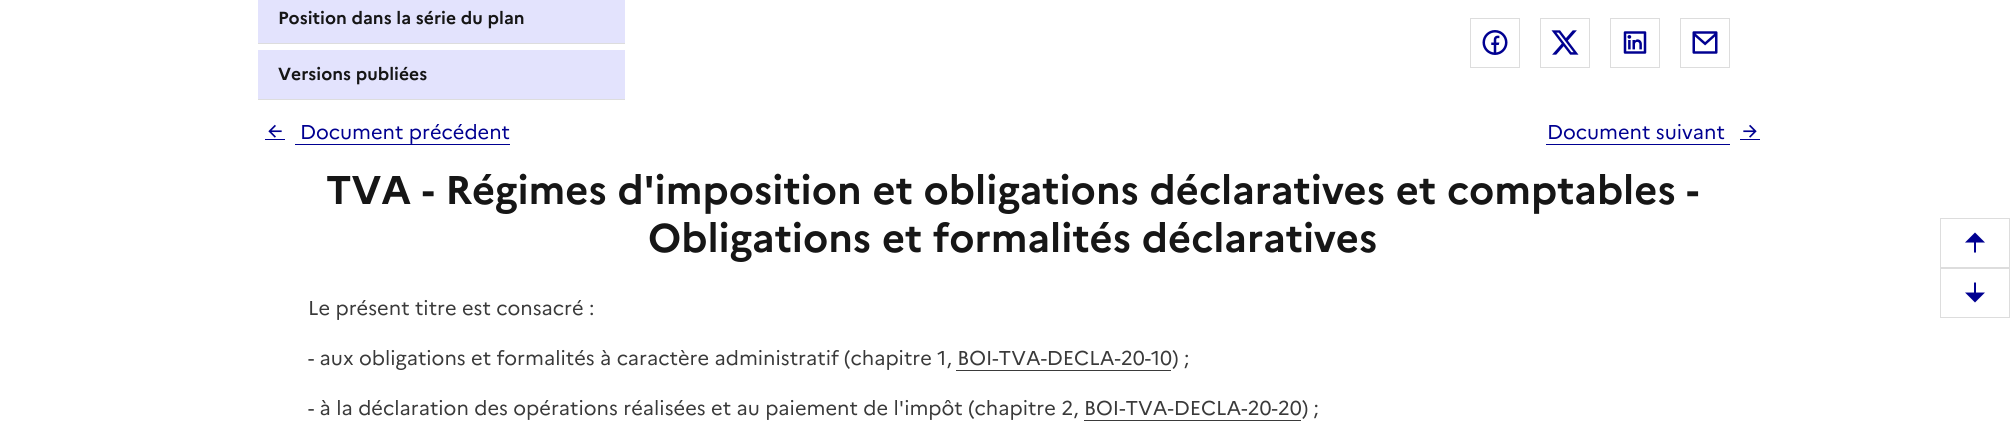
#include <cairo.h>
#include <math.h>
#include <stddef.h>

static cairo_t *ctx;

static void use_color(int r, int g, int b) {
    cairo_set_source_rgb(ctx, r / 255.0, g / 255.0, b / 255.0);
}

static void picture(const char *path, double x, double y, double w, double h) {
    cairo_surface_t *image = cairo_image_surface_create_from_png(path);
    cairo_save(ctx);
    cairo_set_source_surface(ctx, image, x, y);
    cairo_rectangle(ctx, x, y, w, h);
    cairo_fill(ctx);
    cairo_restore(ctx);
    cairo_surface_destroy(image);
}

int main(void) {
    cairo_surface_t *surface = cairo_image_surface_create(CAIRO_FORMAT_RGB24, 2014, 435);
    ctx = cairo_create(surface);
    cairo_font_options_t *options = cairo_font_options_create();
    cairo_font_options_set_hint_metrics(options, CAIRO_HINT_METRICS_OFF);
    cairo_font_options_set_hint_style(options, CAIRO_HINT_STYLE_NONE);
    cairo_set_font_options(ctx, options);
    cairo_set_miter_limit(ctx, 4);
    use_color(255, 255, 255);
    cairo_paint(ctx);
    use_color(227, 227, 253);
    cairo_rectangle(ctx, 258, 0, 367, 43);
    cairo_fill(ctx);
    use_color(221, 221, 221);
    cairo_rectangle(ctx, 258, 43, 367, 1);
    cairo_fill(ctx);
    cairo_select_font_face(ctx, "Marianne", CAIRO_FONT_SLANT_NORMAL, CAIRO_FONT_WEIGHT_BOLD);
    cairo_set_font_size(ctx, 17.5);
    use_color(22, 22, 22);
    cairo_move_to(ctx, 278, 24);
    cairo_show_text(ctx, "Position dans la série du plan");
    use_color(227, 227, 253);
    cairo_rectangle(ctx, 258, 50, 367, 49);
    cairo_fill(ctx);
    use_color(221, 221, 221);
    cairo_rectangle(ctx, 258, 99, 367, 1);
    cairo_fill(ctx);
    use_color(22, 22, 22);
    cairo_move_to(ctx, 278, 80);
    cairo_show_text(ctx, "Versions publiées");
    cairo_rectangle(ctx, 1470.5, 18.5, 49, 49);
    use_color(221, 221, 221);
    cairo_set_line_width(ctx, 1);
    cairo_stroke(ctx);
    picture("img1.png", 1482, 30, 26, 25);
    cairo_rectangle(ctx, 1540.5, 18.5, 49, 49);
    cairo_stroke(ctx);
    picture("img2.png", 1551, 30, 28, 25);
    cairo_rectangle(ctx, 1610.5, 18.5, 49, 49);
    cairo_stroke(ctx);
    picture("img3.png", 1623, 31, 24, 23);
    cairo_rectangle(ctx, 1680.5, 18.5, 49, 49);
    cairo_stroke(ctx);
    picture("img4.png", 1692, 31, 26, 23);
    use_color(0, 0, 145);
    cairo_rectangle(ctx, 265, 139, 20, 1);
    cairo_fill(ctx);
    cairo_rectangle(ctx, 295, 144, 215, 1);
    cairo_fill(ctx);
    picture("img5.png", 268, 124, 14, 14);
    cairo_select_font_face(ctx, "Marianne", CAIRO_FONT_SLANT_NORMAL, CAIRO_FONT_WEIGHT_NORMAL);
    cairo_set_font_size(ctx, 20);
    cairo_move_to(ctx, 300, 139);
    cairo_show_text(ctx, "Document précédent");
    cairo_rectangle(ctx, 1546, 144, 184, 1);
    cairo_fill(ctx);
    cairo_rectangle(ctx, 1740, 139, 20, 1);
    cairo_fill(ctx);
    cairo_move_to(ctx, 1547, 139);
    cairo_show_text(ctx, "Document suivant");
    picture("img6.png", 1743, 124, 14, 14);
    cairo_select_font_face(ctx, "Marianne", CAIRO_FONT_SLANT_NORMAL, CAIRO_FONT_WEIGHT_BOLD);
    cairo_set_font_size(ctx, 40);
    use_color(22, 22, 22);
    cairo_move_to(ctx, 326, 204);
    cairo_show_text(ctx, "TVA - Régimes d'imposition et obligations déclaratives et comptables -");
    cairo_move_to(ctx, 648, 252);
    cairo_show_text(ctx, "Obligations et formalités déclaratives");
    cairo_select_font_face(ctx, "Marianne", CAIRO_FONT_SLANT_NORMAL, CAIRO_FONT_WEIGHT_NORMAL);
    cairo_set_font_size(ctx, 20);
    use_color(58, 58, 58);
    cairo_move_to(ctx, 308, 315);
    cairo_show_text(ctx, "Le présent titre est consacré :");
    cairo_move_to(ctx, 308, 365);
    cairo_show_text(ctx, "- aux obligations et formalités à caractère administratif (chapitre 1, BOI-TVA-DECLA-20-10) ;");
    cairo_rectangle(ctx, 956, 370, 215, 1);
    cairo_fill(ctx);
    cairo_move_to(ctx, 308, 415);
    cairo_show_text(ctx, "- à la déclaration des opérations réalisées et au paiement de l'impôt (chapitre 2, BOI-TVA-DECLA-20-20) ;");
    cairo_rectangle(ctx, 1084, 420, 217, 1);
    cairo_fill(ctx);
    cairo_rectangle(ctx, 1940.5, 218.5, 69, 49);
    use_color(221, 221, 221);
    cairo_stroke(ctx);
    use_color(0, 0, 145);
    cairo_new_path(ctx);
    cairo_move_to(ctx, 1976, 242.5);
    cairo_line_to(ctx, 1976, 252.5);
    cairo_line_to(ctx, 1974, 252.5);
    cairo_line_to(ctx, 1974, 242.5);
    cairo_line_to(ctx, 1965, 242.5);
    cairo_line_to(ctx, 1975, 232.5);
    cairo_line_to(ctx, 1985, 242.5);
    cairo_close_path(ctx);
    cairo_fill(ctx);
    cairo_rectangle(ctx, 1940.5, 268.5, 69, 49);
    use_color(221, 221, 221);
    cairo_stroke(ctx);
    use_color(0, 0, 145);
    cairo_new_path(ctx);
    cairo_move_to(ctx, 1976, 292.5);
    cairo_line_to(ctx, 1985, 292.5);
    cairo_line_to(ctx, 1975, 302.5);
    cairo_line_to(ctx, 1965, 292.5);
    cairo_line_to(ctx, 1974, 292.5);
    cairo_line_to(ctx, 1974, 282.5);
    cairo_line_to(ctx, 1976, 282.5);
    cairo_close_path(ctx);
    cairo_fill(ctx);
    cairo_surface_write_to_png(surface, "result.png");
    cairo_font_options_destroy(options);
    cairo_destroy(ctx);
    cairo_surface_destroy(surface);
    return 0;
}
